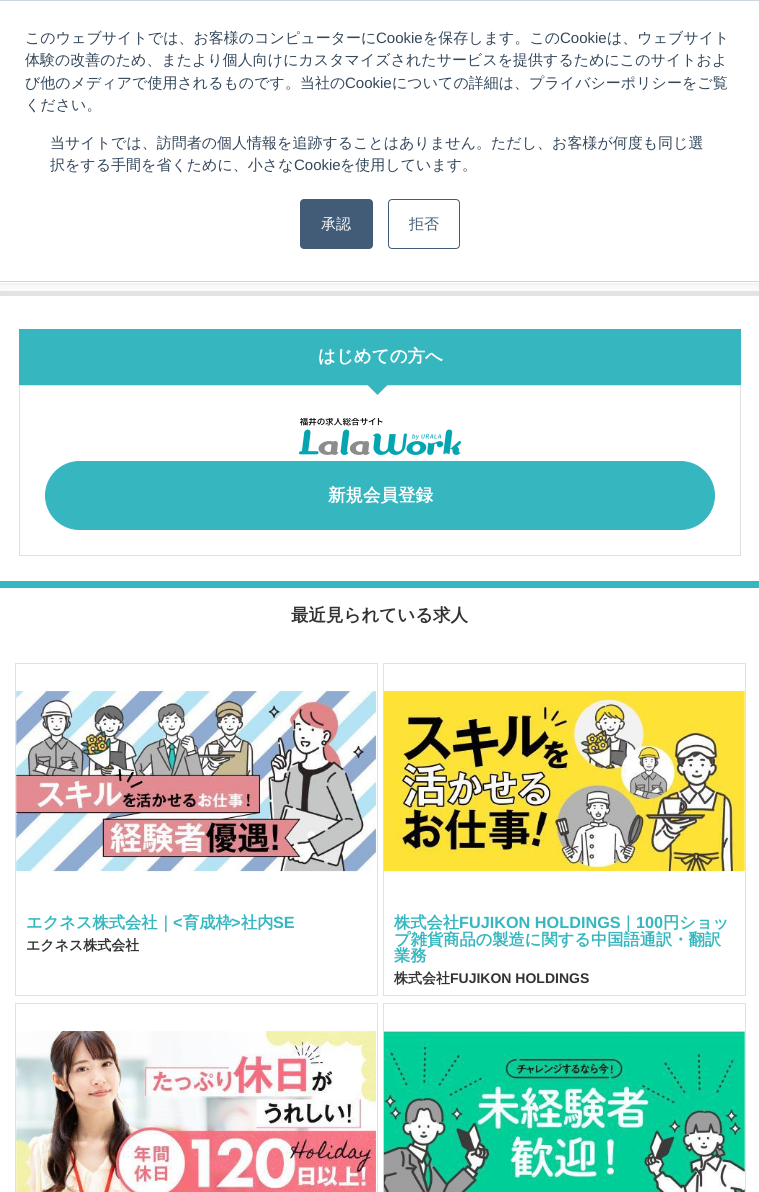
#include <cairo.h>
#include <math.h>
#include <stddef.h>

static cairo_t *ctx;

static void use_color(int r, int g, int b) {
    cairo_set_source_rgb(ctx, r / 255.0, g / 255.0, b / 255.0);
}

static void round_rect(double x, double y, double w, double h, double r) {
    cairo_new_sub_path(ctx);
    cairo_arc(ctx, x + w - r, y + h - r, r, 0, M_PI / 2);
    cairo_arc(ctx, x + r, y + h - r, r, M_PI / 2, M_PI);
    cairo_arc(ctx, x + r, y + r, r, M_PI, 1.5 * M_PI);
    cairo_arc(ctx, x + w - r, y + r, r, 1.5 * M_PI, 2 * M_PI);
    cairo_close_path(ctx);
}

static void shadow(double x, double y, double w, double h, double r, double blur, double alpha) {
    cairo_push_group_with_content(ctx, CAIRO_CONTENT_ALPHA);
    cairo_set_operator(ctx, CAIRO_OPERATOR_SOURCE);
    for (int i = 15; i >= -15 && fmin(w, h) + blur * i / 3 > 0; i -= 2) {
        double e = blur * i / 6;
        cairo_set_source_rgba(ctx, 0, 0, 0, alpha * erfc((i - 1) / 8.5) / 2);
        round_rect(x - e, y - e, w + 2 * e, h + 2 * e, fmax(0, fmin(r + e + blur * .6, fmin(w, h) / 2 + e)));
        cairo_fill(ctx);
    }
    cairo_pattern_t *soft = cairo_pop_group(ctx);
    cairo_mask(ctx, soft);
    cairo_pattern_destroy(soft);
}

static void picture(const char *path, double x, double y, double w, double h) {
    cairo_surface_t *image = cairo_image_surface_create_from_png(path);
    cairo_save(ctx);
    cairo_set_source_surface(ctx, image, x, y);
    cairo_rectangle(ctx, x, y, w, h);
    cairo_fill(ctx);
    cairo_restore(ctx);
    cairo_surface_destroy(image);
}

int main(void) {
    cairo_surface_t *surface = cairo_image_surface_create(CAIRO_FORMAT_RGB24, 759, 1192);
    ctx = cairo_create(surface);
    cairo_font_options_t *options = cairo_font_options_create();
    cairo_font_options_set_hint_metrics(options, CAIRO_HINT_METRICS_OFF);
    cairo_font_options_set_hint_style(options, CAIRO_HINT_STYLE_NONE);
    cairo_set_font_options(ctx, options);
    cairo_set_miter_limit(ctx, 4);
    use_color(255, 255, 255);
    cairo_paint(ctx);
    use_color(227, 227, 227);
    cairo_rectangle(ctx, 0, 291, 759, 5);
    cairo_fill(ctx);
    use_color(250, 250, 250);
    cairo_rectangle(ctx, 0, 283, 759, 8);
    cairo_fill(ctx);
    use_color(234, 240, 246);
    shadow(0, 1, 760, 283, 0, 3, 1);
    use_color(255, 255, 255);
    cairo_rectangle(ctx, 0, 1, 759, 282);
    cairo_fill(ctx);
    use_color(203, 214, 226);
    cairo_rectangle(ctx, 0, 0, 759, 1);
    cairo_fill(ctx);
    cairo_rectangle(ctx, 0, 281, 759, 1);
    cairo_fill(ctx);
    cairo_select_font_face(ctx, "WenQuanYi Zen Hei Medium", CAIRO_FONT_SLANT_NORMAL, CAIRO_FONT_WEIGHT_NORMAL);
    cairo_set_font_size(ctx, 15);
    use_color(51, 71, 91);
    cairo_move_to(ctx, 25, 43);
    cairo_show_text(ctx, "このウェブサイトでは、お客様のコンピューターに");
    cairo_select_font_face(ctx, "Liberation Sans", CAIRO_FONT_SLANT_NORMAL, CAIRO_FONT_WEIGHT_NORMAL);
    cairo_move_to(ctx, 376, 43);
    cairo_show_text(ctx, "Cookie");
    cairo_select_font_face(ctx, "WenQuanYi Zen Hei Medium", CAIRO_FONT_SLANT_NORMAL, CAIRO_FONT_WEIGHT_NORMAL);
    cairo_move_to(ctx, 423, 43);
    cairo_show_text(ctx, "を保存します。この");
    cairo_select_font_face(ctx, "Liberation Sans", CAIRO_FONT_SLANT_NORMAL, CAIRO_FONT_WEIGHT_NORMAL);
    cairo_move_to(ctx, 560, 43);
    cairo_show_text(ctx, "Cookie");
    cairo_select_font_face(ctx, "WenQuanYi Zen Hei Medium", CAIRO_FONT_SLANT_NORMAL, CAIRO_FONT_WEIGHT_NORMAL);
    cairo_move_to(ctx, 607, 43);
    cairo_show_text(ctx, "は、ウェブサイト");
    cairo_move_to(ctx, 25, 65);
    cairo_show_text(ctx, "体験の改善のため、またより個人向けにカスタマイズされたサービスを提供するためにこのサイトおよ");
    cairo_move_to(ctx, 25, 88);
    cairo_show_text(ctx, "び他のメディアで使用されるものです。当社の");
    cairo_select_font_face(ctx, "Liberation Sans", CAIRO_FONT_SLANT_NORMAL, CAIRO_FONT_WEIGHT_NORMAL);
    cairo_move_to(ctx, 345, 88);
    cairo_show_text(ctx, "Cookie");
    cairo_select_font_face(ctx, "WenQuanYi Zen Hei Medium", CAIRO_FONT_SLANT_NORMAL, CAIRO_FONT_WEIGHT_NORMAL);
    cairo_move_to(ctx, 392, 88);
    cairo_show_text(ctx, "についての詳細は、プライバシーポリシーをご覧");
    cairo_move_to(ctx, 25, 110);
    cairo_show_text(ctx, "ください。");
    cairo_move_to(ctx, 50, 148);
    cairo_show_text(ctx, "当サイトでは、訪問者の個人情報を追跡することはありません。ただし、お客様が何度も同じ選");
    cairo_move_to(ctx, 50, 170);
    cairo_show_text(ctx, "択をする手間を省くために、小さな");
    cairo_select_font_face(ctx, "Liberation Sans", CAIRO_FONT_SLANT_NORMAL, CAIRO_FONT_WEIGHT_NORMAL);
    cairo_move_to(ctx, 294, 170);
    cairo_show_text(ctx, "Cookie");
    cairo_select_font_face(ctx, "WenQuanYi Zen Hei Medium", CAIRO_FONT_SLANT_NORMAL, CAIRO_FONT_WEIGHT_NORMAL);
    cairo_move_to(ctx, 340, 170);
    cairo_show_text(ctx, "を使用しています。");
    use_color(66, 91, 118);
    round_rect(300.5, 199.5, 72, 49, 3.5);
    cairo_fill_preserve(ctx);
    cairo_set_line_width(ctx, 1);
    cairo_stroke(ctx);
    use_color(255, 255, 255);
    cairo_move_to(ctx, 321, 229);
    cairo_show_text(ctx, "承認");
    round_rect(388.5, 199.5, 71, 49, 3.5);
    use_color(66, 91, 118);
    cairo_stroke(ctx);
    cairo_move_to(ctx, 409, 229);
    cairo_show_text(ctx, "拒否");
    use_color(54, 183, 191);
    cairo_rectangle(ctx, 19, 329, 722, 56);
    cairo_fill(ctx);
    cairo_select_font_face(ctx, "WenQuanYi Zen Hei", CAIRO_FONT_SLANT_NORMAL, CAIRO_FONT_WEIGHT_BOLD);
    cairo_set_font_size(ctx, 17.5);
    use_color(255, 255, 255);
    cairo_move_to(ctx, 318, 362);
    cairo_show_text(ctx, "はじめての方へ");
    cairo_rectangle(ctx, 19.5, 385.5, 721, 170);
    use_color(225, 225, 225);
    cairo_stroke(ctx);
    use_color(54, 183, 191);
    cairo_new_path(ctx);
    cairo_move_to(ctx, 367.5, 385);
    cairo_line_to(ctx, 387.5, 385);
    cairo_line_to(ctx, 377.5, 395);
    cairo_close_path(ctx);
    cairo_fill(ctx);
    picture("img1.png", 299, 418, 162, 37);
    round_rect(45.5, 461.5, 669, 68, 34);
    cairo_fill_preserve(ctx);
    cairo_stroke(ctx);
    use_color(255, 255, 255);
    cairo_move_to(ctx, 328, 501);
    cairo_show_text(ctx, "新規会員登録");
    use_color(54, 183, 191);
    cairo_rectangle(ctx, 0, 581, 759, 7);
    cairo_fill(ctx);
    use_color(51, 51, 51);
    cairo_move_to(ctx, 291, 621);
    cairo_show_text(ctx, "最近見られている求人");
    cairo_rectangle(ctx, 15.5, 663.5, 362, 332);
    use_color(225, 225, 225);
    cairo_stroke(ctx);
    picture("img2.png", 16, 691, 360, 181);
    cairo_set_font_size(ctx, 16.25);
    use_color(54, 183, 191);
    cairo_move_to(ctx, 26, 928);
    cairo_show_text(ctx, "エクネス株式会社｜");
    cairo_select_font_face(ctx, "Liberation Sans", CAIRO_FONT_SLANT_NORMAL, CAIRO_FONT_WEIGHT_BOLD);
    cairo_move_to(ctx, 173, 928);
    cairo_show_text(ctx, "<");
    cairo_select_font_face(ctx, "WenQuanYi Zen Hei", CAIRO_FONT_SLANT_NORMAL, CAIRO_FONT_WEIGHT_BOLD);
    cairo_move_to(ctx, 183, 928);
    cairo_show_text(ctx, "育成枠");
    cairo_select_font_face(ctx, "Liberation Sans", CAIRO_FONT_SLANT_NORMAL, CAIRO_FONT_WEIGHT_BOLD);
    cairo_move_to(ctx, 231, 928);
    cairo_show_text(ctx, ">");
    cairo_select_font_face(ctx, "WenQuanYi Zen Hei", CAIRO_FONT_SLANT_NORMAL, CAIRO_FONT_WEIGHT_BOLD);
    cairo_move_to(ctx, 241, 928);
    cairo_show_text(ctx, "社内");
    cairo_select_font_face(ctx, "Liberation Sans", CAIRO_FONT_SLANT_NORMAL, CAIRO_FONT_WEIGHT_BOLD);
    cairo_move_to(ctx, 273, 928);
    cairo_show_text(ctx, "SE");
    cairo_select_font_face(ctx, "WenQuanYi Zen Hei", CAIRO_FONT_SLANT_NORMAL, CAIRO_FONT_WEIGHT_BOLD);
    cairo_set_font_size(ctx, 14);
    use_color(51, 51, 51);
    cairo_move_to(ctx, 26, 950);
    cairo_show_text(ctx, "エクネス株式会社");
    cairo_rectangle(ctx, 383.5, 663.5, 362, 332);
    use_color(225, 225, 225);
    cairo_stroke(ctx);
    picture("img3.png", 383, 691, 362, 181);
    cairo_set_font_size(ctx, 16.25);
    use_color(54, 183, 191);
    cairo_move_to(ctx, 394, 928);
    cairo_show_text(ctx, "株式会社");
    cairo_select_font_face(ctx, "Liberation Sans", CAIRO_FONT_SLANT_NORMAL, CAIRO_FONT_WEIGHT_BOLD);
    cairo_move_to(ctx, 459, 928);
    cairo_show_text(ctx, "FUJIKON HOLDINGS");
    cairo_select_font_face(ctx, "WenQuanYi Zen Hei", CAIRO_FONT_SLANT_NORMAL, CAIRO_FONT_WEIGHT_BOLD);
    cairo_move_to(ctx, 620, 928);
    cairo_show_text(ctx, "｜");
    cairo_select_font_face(ctx, "Liberation Sans", CAIRO_FONT_SLANT_NORMAL, CAIRO_FONT_WEIGHT_BOLD);
    cairo_move_to(ctx, 636, 928);
    cairo_show_text(ctx, "100");
    cairo_select_font_face(ctx, "WenQuanYi Zen Hei", CAIRO_FONT_SLANT_NORMAL, CAIRO_FONT_WEIGHT_BOLD);
    cairo_move_to(ctx, 663, 928);
    cairo_show_text(ctx, "円ショッ");
    cairo_move_to(ctx, 394, 945);
    cairo_show_text(ctx, "プ雑貨商品の製造に関する中国語通訳・翻訳");
    cairo_move_to(ctx, 394, 961);
    cairo_show_text(ctx, "業務");
    cairo_set_font_size(ctx, 14);
    use_color(51, 51, 51);
    cairo_move_to(ctx, 394, 983);
    cairo_show_text(ctx, "株式会社");
    cairo_select_font_face(ctx, "Liberation Sans", CAIRO_FONT_SLANT_NORMAL, CAIRO_FONT_WEIGHT_BOLD);
    cairo_move_to(ctx, 450, 983);
    cairo_show_text(ctx, "FUJIKON HOLDINGS");
    cairo_rectangle(ctx, 15.5, 1003.5, 362, 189);
    use_color(225, 225, 225);
    cairo_stroke(ctx);
    picture("img4.png", 16, 1031, 360, 161);
    cairo_rectangle(ctx, 383.5, 1003.5, 362, 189);
    cairo_stroke(ctx);
    picture("img5.png", 383, 1031, 362, 161);
    cairo_surface_write_to_png(surface, "result.png");
    cairo_font_options_destroy(options);
    cairo_destroy(ctx);
    cairo_surface_destroy(surface);
    return 0;
}
